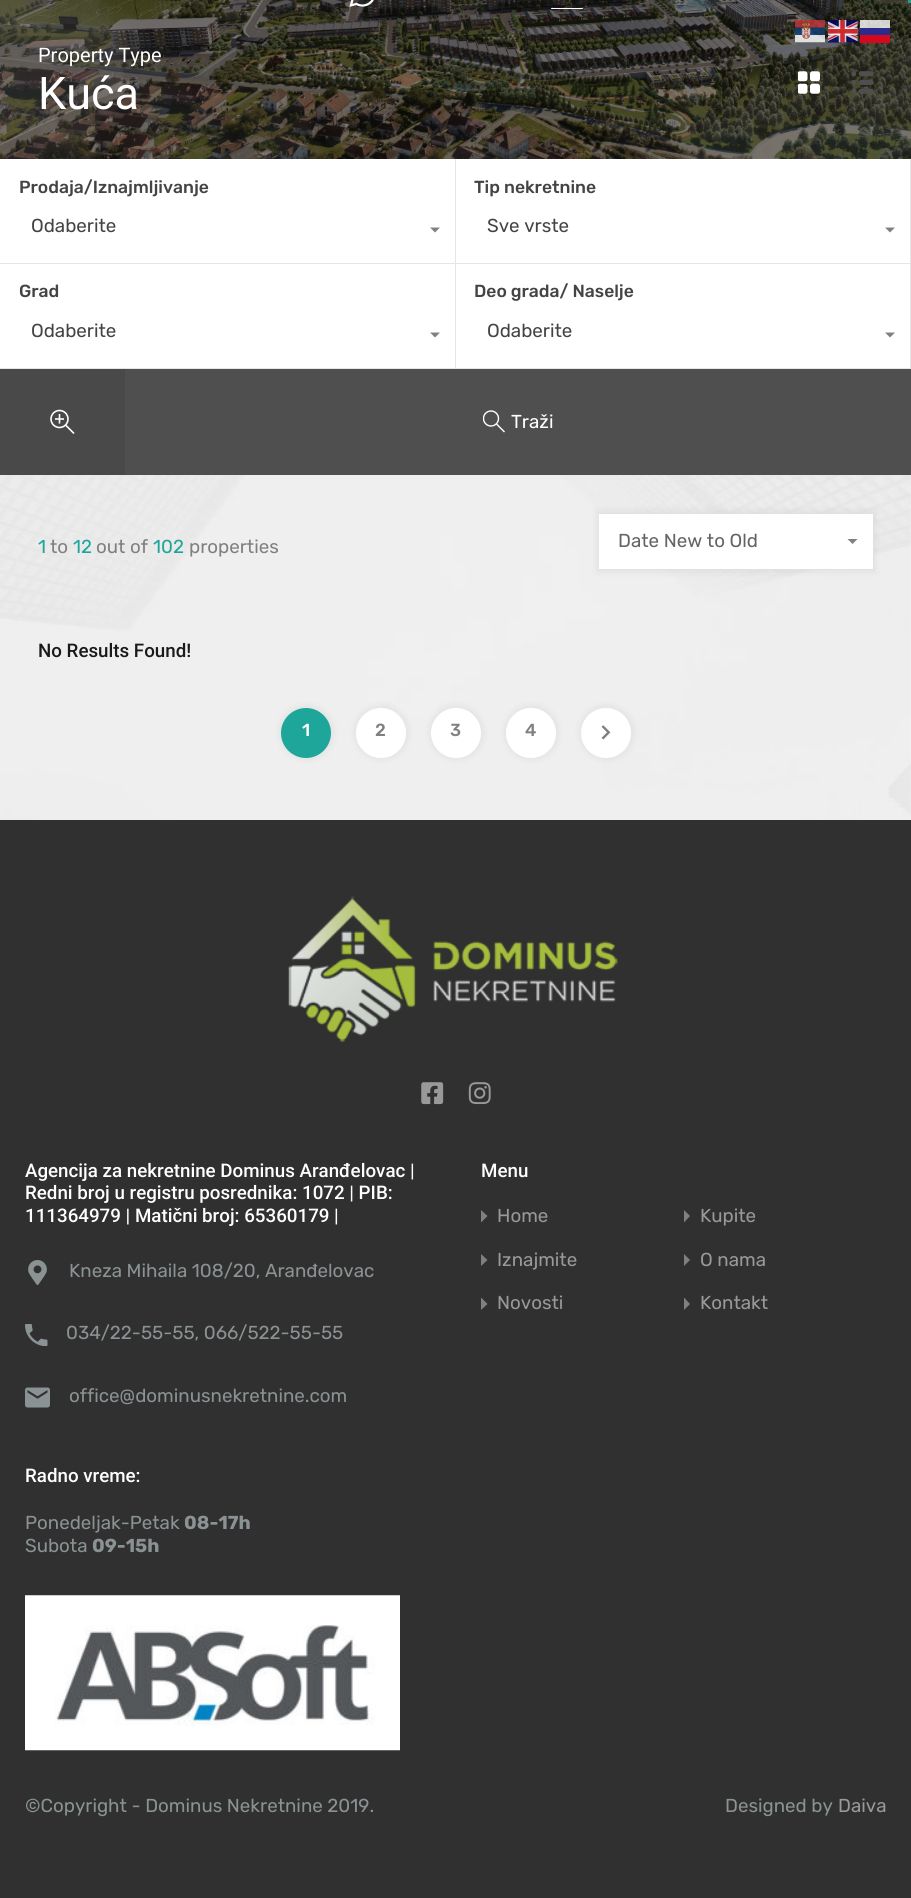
#include <cairo.h>
#include <math.h>
#include <stddef.h>

static cairo_t *ctx;

static void use_color(int r, int g, int b) {
    cairo_set_source_rgb(ctx, r / 255.0, g / 255.0, b / 255.0);
}

static void round_rect(double x, double y, double w, double h, double r) {
    cairo_new_sub_path(ctx);
    cairo_arc(ctx, x + w - r, y + h - r, r, 0, M_PI / 2);
    cairo_arc(ctx, x + r, y + h - r, r, M_PI / 2, M_PI);
    cairo_arc(ctx, x + r, y + r, r, M_PI, 1.5 * M_PI);
    cairo_arc(ctx, x + w - r, y + r, r, 1.5 * M_PI, 2 * M_PI);
    cairo_close_path(ctx);
}

static void shadow(double x, double y, double w, double h, double r, double blur, double alpha) {
    cairo_push_group_with_content(ctx, CAIRO_CONTENT_ALPHA);
    cairo_set_operator(ctx, CAIRO_OPERATOR_SOURCE);
    for (int i = 15; i >= -15 && fmin(w, h) + blur * i / 3 > 0; i -= 2) {
        double e = blur * i / 6;
        cairo_set_source_rgba(ctx, 0, 0, 0, alpha * erfc((i - 1) / 8.5) / 2);
        round_rect(x - e, y - e, w + 2 * e, h + 2 * e, fmax(0, fmin(r + e + blur * .6, fmin(w, h) / 2 + e)));
        cairo_fill(ctx);
    }
    cairo_pattern_t *soft = cairo_pop_group(ctx);
    cairo_mask(ctx, soft);
    cairo_pattern_destroy(soft);
}

static void picture(const char *path, double x, double y, double w, double h) {
    cairo_surface_t *image = cairo_image_surface_create_from_png(path);
    cairo_save(ctx);
    cairo_set_source_surface(ctx, image, x, y);
    cairo_rectangle(ctx, x, y, w, h);
    cairo_fill(ctx);
    cairo_restore(ctx);
    cairo_surface_destroy(image);
}

int main(void) {
    cairo_surface_t *surface = cairo_image_surface_create(CAIRO_FORMAT_RGB24, 911, 1898);
    ctx = cairo_create(surface);
    cairo_font_options_t *options = cairo_font_options_create();
    cairo_font_options_set_hint_metrics(options, CAIRO_HINT_METRICS_OFF);
    cairo_font_options_set_hint_style(options, CAIRO_HINT_STYLE_NONE);
    cairo_set_font_options(ctx, options);
    cairo_set_miter_limit(ctx, 4);
    use_color(255, 255, 255);
    cairo_paint(ctx);
    picture("img1.png", 0, 475, 911, 345);
    picture("img5.png", 0, 0, 911, 159);
    picture("img2.png", 795, 20, 30, 23);
    picture("img3.png", 828, 20, 30, 23);
    cairo_set_source_rgba(ctx, 1, 1, 1, 0.8);
    cairo_rectangle(ctx, 860, 20, 30, 23);
    cairo_fill(ctx);
    cairo_set_source_rgba(ctx, 0.004, 0.004, 0.494, 0.8);
    cairo_rectangle(ctx, 860, 28, 30, 15);
    cairo_fill(ctx);
    cairo_set_source_rgba(ctx, 0.996, 0.004, 0.004, 0.8);
    cairo_rectangle(ctx, 860, 35, 30, 8);
    cairo_fill(ctx);
    picture("img4.png", 349, 0, 25, 7);
    use_color(255, 255, 255);
    round_rect(551, 8, 32, 1, 0.5);
    cairo_fill(ctx);
    cairo_new_path(ctx);
    cairo_move_to(ctx, 908, 1.5);
    cairo_line_to(ctx, 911.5, 1.5);
    use_color(30, 166, 154);
    cairo_set_line_width(ctx, 2.7);
    cairo_stroke(ctx);
    cairo_select_font_face(ctx, "Roboto", CAIRO_FONT_SLANT_NORMAL, CAIRO_FONT_WEIGHT_NORMAL);
    cairo_set_font_size(ctx, 20);
    use_color(255, 255, 255);
    cairo_move_to(ctx, 38, 62);
    cairo_show_text(ctx, "Property Type");
    cairo_set_font_size(ctx, 45);
    cairo_move_to(ctx, 38, 109);
    cairo_show_text(ctx, "Kuća");
    picture("img6.png", 798, 71, 22, 23);
    picture("img7.png", 851, 71, 23, 23);
    use_color(230, 230, 230);
    cairo_new_path(ctx);
    cairo_move_to(ctx, 456, 159);
    cairo_line_to(ctx, 456, 264);
    cairo_line_to(ctx, 455, 262);
    cairo_line_to(ctx, 455, 159);
    cairo_close_path(ctx);
    cairo_fill(ctx);
    cairo_set_source_rgba(ctx, 0.502, 0.502, 0.502, 0.2);
    cairo_new_path(ctx);
    cairo_move_to(ctx, 456, 264);
    cairo_line_to(ctx, 0, 264);
    cairo_line_to(ctx, 0, 262);
    cairo_line_to(ctx, 455, 262);
    cairo_close_path(ctx);
    cairo_fill(ctx);
    cairo_select_font_face(ctx, "Rubik Medium", CAIRO_FONT_SLANT_NORMAL, CAIRO_FONT_WEIGHT_NORMAL);
    cairo_set_font_size(ctx, 17.5);
    use_color(68, 68, 68);
    cairo_move_to(ctx, 19, 193);
    cairo_show_text(ctx, "Prodaja/Iznajmljivanje");
    use_color(255, 255, 255);
    cairo_rectangle(ctx, 0, 262, 455, 1);
    cairo_fill(ctx);
    cairo_select_font_face(ctx, "Rubik", CAIRO_FONT_SLANT_NORMAL, CAIRO_FONT_WEIGHT_NORMAL);
    cairo_set_font_size(ctx, 18.75);
    use_color(68, 68, 68);
    cairo_move_to(ctx, 31, 232);
    cairo_show_text(ctx, "Odaberite");
    use_color(128, 128, 128);
    cairo_new_path(ctx);
    cairo_move_to(ctx, 430, 227.5);
    cairo_line_to(ctx, 440, 227.5);
    cairo_line_to(ctx, 435, 232.5);
    cairo_close_path(ctx);
    cairo_fill(ctx);
    use_color(230, 230, 230);
    cairo_new_path(ctx);
    cairo_move_to(ctx, 911, 159);
    cairo_line_to(ctx, 911, 264);
    cairo_line_to(ctx, 910, 262);
    cairo_line_to(ctx, 910, 159);
    cairo_close_path(ctx);
    cairo_fill(ctx);
    cairo_set_source_rgba(ctx, 0.502, 0.502, 0.502, 0.2);
    cairo_new_path(ctx);
    cairo_move_to(ctx, 911, 264);
    cairo_line_to(ctx, 456, 264);
    cairo_line_to(ctx, 456, 262);
    cairo_line_to(ctx, 910, 262);
    cairo_close_path(ctx);
    cairo_fill(ctx);
    cairo_select_font_face(ctx, "Rubik Medium", CAIRO_FONT_SLANT_NORMAL, CAIRO_FONT_WEIGHT_NORMAL);
    cairo_set_font_size(ctx, 17.5);
    use_color(68, 68, 68);
    cairo_move_to(ctx, 474, 193);
    cairo_show_text(ctx, "Tip nekretnine");
    use_color(255, 255, 255);
    cairo_rectangle(ctx, 456, 262, 454, 1);
    cairo_fill(ctx);
    cairo_select_font_face(ctx, "Rubik", CAIRO_FONT_SLANT_NORMAL, CAIRO_FONT_WEIGHT_NORMAL);
    cairo_set_font_size(ctx, 18.75);
    use_color(68, 68, 68);
    cairo_move_to(ctx, 487, 232);
    cairo_show_text(ctx, "Sve vrste");
    use_color(128, 128, 128);
    cairo_new_path(ctx);
    cairo_move_to(ctx, 885, 227.5);
    cairo_line_to(ctx, 895, 227.5);
    cairo_line_to(ctx, 890, 232.5);
    cairo_close_path(ctx);
    cairo_fill(ctx);
    use_color(230, 230, 230);
    cairo_new_path(ctx);
    cairo_move_to(ctx, 456, 264);
    cairo_line_to(ctx, 456, 369);
    cairo_line_to(ctx, 455, 368);
    cairo_line_to(ctx, 455, 264);
    cairo_close_path(ctx);
    cairo_fill(ctx);
    cairo_set_source_rgba(ctx, 0.502, 0.502, 0.502, 0.2);
    cairo_new_path(ctx);
    cairo_move_to(ctx, 456, 369);
    cairo_line_to(ctx, 0, 369);
    cairo_line_to(ctx, 0, 368);
    cairo_line_to(ctx, 455, 368);
    cairo_close_path(ctx);
    cairo_fill(ctx);
    cairo_select_font_face(ctx, "Rubik Medium", CAIRO_FONT_SLANT_NORMAL, CAIRO_FONT_WEIGHT_NORMAL);
    cairo_set_font_size(ctx, 17.5);
    use_color(68, 68, 68);
    cairo_move_to(ctx, 19, 297);
    cairo_show_text(ctx, "Grad");
    cairo_select_font_face(ctx, "Rubik", CAIRO_FONT_SLANT_NORMAL, CAIRO_FONT_WEIGHT_NORMAL);
    cairo_set_font_size(ctx, 18.75);
    cairo_move_to(ctx, 31, 337);
    cairo_show_text(ctx, "Odaberite");
    use_color(128, 128, 128);
    cairo_new_path(ctx);
    cairo_move_to(ctx, 430, 332.5);
    cairo_line_to(ctx, 440, 332.5);
    cairo_line_to(ctx, 435, 337.5);
    cairo_close_path(ctx);
    cairo_fill(ctx);
    use_color(230, 230, 230);
    cairo_new_path(ctx);
    cairo_move_to(ctx, 911, 264);
    cairo_line_to(ctx, 911, 369);
    cairo_line_to(ctx, 910, 368);
    cairo_line_to(ctx, 910, 264);
    cairo_close_path(ctx);
    cairo_fill(ctx);
    cairo_set_source_rgba(ctx, 0.502, 0.502, 0.502, 0.2);
    cairo_new_path(ctx);
    cairo_move_to(ctx, 911, 369);
    cairo_line_to(ctx, 456, 369);
    cairo_line_to(ctx, 456, 368);
    cairo_line_to(ctx, 910, 368);
    cairo_close_path(ctx);
    cairo_fill(ctx);
    cairo_select_font_face(ctx, "Rubik Medium", CAIRO_FONT_SLANT_NORMAL, CAIRO_FONT_WEIGHT_NORMAL);
    cairo_set_font_size(ctx, 17.5);
    use_color(68, 68, 68);
    cairo_move_to(ctx, 474, 297);
    cairo_show_text(ctx, "Deo grada/ Naselje");
    cairo_select_font_face(ctx, "Rubik", CAIRO_FONT_SLANT_NORMAL, CAIRO_FONT_WEIGHT_NORMAL);
    cairo_set_font_size(ctx, 18.75);
    cairo_move_to(ctx, 487, 337);
    cairo_show_text(ctx, "Odaberite");
    use_color(128, 128, 128);
    cairo_new_path(ctx);
    cairo_move_to(ctx, 885, 332.5);
    cairo_line_to(ctx, 895, 332.5);
    cairo_line_to(ctx, 890, 337.5);
    cairo_close_path(ctx);
    cairo_fill(ctx);
    use_color(73, 73, 73);
    cairo_rectangle(ctx, 0, 369, 125, 106);
    cairo_fill(ctx);
    cairo_arc(ctx, 59.5, 419, 8.5, 0, 2 * M_PI);
    use_color(255, 255, 255);
    cairo_set_line_width(ctx, 1.6);
    cairo_stroke(ctx);
    cairo_new_path(ctx);
    cairo_move_to(ctx, 65.5, 425);
    cairo_line_to(ctx, 74, 433.5);
    cairo_move_to(ctx, 59.5, 414);
    cairo_line_to(ctx, 59.5, 423.5);
    cairo_set_line_join(ctx, CAIRO_LINE_JOIN_ROUND);
    cairo_stroke(ctx);
    cairo_set_source_rgba(ctx, 1, 1, 1, 0.8);
    cairo_rectangle(ctx, 55, 418, 9, 2);
    cairo_fill(ctx);
    use_color(79, 79, 79);
    cairo_rectangle(ctx, 125, 369, 786, 106);
    cairo_fill(ctx);
    cairo_save(ctx);
    cairo_rectangle(ctx, 483, 410, 22, 23);
    cairo_clip(ctx);
    cairo_arc(ctx, 491, 418.5, 7.5, 0, 2 * M_PI);
    use_color(255, 255, 255);
    cairo_set_line_width(ctx, 1.4);
    cairo_set_line_join(ctx, CAIRO_LINE_JOIN_MITER);
    cairo_stroke(ctx);
    cairo_restore(ctx);
    cairo_new_path(ctx);
    cairo_move_to(ctx, 496.5, 424);
    cairo_line_to(ctx, 504.5, 432);
    use_color(255, 255, 255);
    cairo_set_line_width(ctx, 1.4);
    cairo_stroke(ctx);
    cairo_move_to(ctx, 511, 428);
    cairo_show_text(ctx, "Traži");
    use_color(30, 166, 154);
    cairo_move_to(ctx, 38, 553);
    cairo_show_text(ctx, "1");
    use_color(128, 128, 128);
    cairo_move_to(ctx, 50, 553);
    cairo_show_text(ctx, "to");
    use_color(30, 166, 154);
    cairo_move_to(ctx, 73, 553);
    cairo_show_text(ctx, "12");
    use_color(128, 128, 128);
    cairo_move_to(ctx, 96, 553);
    cairo_show_text(ctx, "out of");
    use_color(30, 166, 154);
    cairo_move_to(ctx, 153, 553);
    cairo_show_text(ctx, "102");
    use_color(128, 128, 128);
    cairo_move_to(ctx, 189, 553);
    cairo_show_text(ctx, "properties");
    use_color(0, 0, 0);
    shadow(596, 510, 280, 63, 0, 3, 0.05);
    use_color(255, 255, 255);
    cairo_rectangle(ctx, 599, 514, 274, 55);
    cairo_fill(ctx);
    use_color(224, 224, 224);
    cairo_rectangle(ctx, 599, 513, 275, 1);
    cairo_fill(ctx);
    cairo_rectangle(ctx, 873, 522, 1, 48);
    cairo_fill(ctx);
    cairo_rectangle(ctx, 599, 569, 275, 1);
    cairo_fill(ctx);
    use_color(100, 100, 100);
    cairo_move_to(ctx, 618, 547);
    cairo_show_text(ctx, "Date New to Old");
    use_color(128, 128, 128);
    cairo_new_path(ctx);
    cairo_move_to(ctx, 847.5, 539);
    cairo_line_to(ctx, 857.5, 539);
    cairo_line_to(ctx, 852.5, 544);
    cairo_close_path(ctx);
    cairo_fill(ctx);
    cairo_select_font_face(ctx, "Roboto Medium", CAIRO_FONT_SLANT_NORMAL, CAIRO_FONT_WEIGHT_NORMAL);
    use_color(26, 26, 26);
    cairo_move_to(ctx, 38, 657);
    cairo_show_text(ctx, "No Results Found!");
    use_color(0, 0, 0);
    shadow(279, 705, 55, 55, 27.5, 3, 0.05);
    use_color(30, 166, 154);
    cairo_arc(ctx, 306, 733, 25, 0, 2 * M_PI);
    cairo_fill(ctx);
    cairo_select_font_face(ctx, "Rubik Medium", CAIRO_FONT_SLANT_NORMAL, CAIRO_FONT_WEIGHT_NORMAL);
    cairo_set_font_size(ctx, 17.5);
    use_color(255, 255, 255);
    cairo_move_to(ctx, 302, 736);
    cairo_show_text(ctx, "1");
    use_color(0, 0, 0);
    shadow(354, 705, 55, 55, 27.5, 3, 0.05);
    use_color(255, 255, 255);
    cairo_arc(ctx, 381, 733, 25, 0, 2 * M_PI);
    cairo_fill(ctx);
    use_color(128, 128, 128);
    cairo_move_to(ctx, 375, 736);
    cairo_show_text(ctx, "2");
    use_color(0, 0, 0);
    shadow(429, 705, 55, 55, 27.5, 3, 0.05);
    use_color(255, 255, 255);
    cairo_arc(ctx, 456, 733, 25, 0, 2 * M_PI);
    cairo_fill(ctx);
    use_color(128, 128, 128);
    cairo_move_to(ctx, 450, 736);
    cairo_show_text(ctx, "3");
    use_color(0, 0, 0);
    shadow(504, 705, 55, 55, 27.5, 3, 0.05);
    use_color(255, 255, 255);
    cairo_arc(ctx, 531, 733, 25, 0, 2 * M_PI);
    cairo_fill(ctx);
    use_color(128, 128, 128);
    cairo_move_to(ctx, 525, 736);
    cairo_show_text(ctx, "4");
    use_color(0, 0, 0);
    shadow(579, 705, 55, 55, 27.5, 3, 0.05);
    use_color(255, 255, 255);
    cairo_arc(ctx, 606, 733, 25, 0, 2 * M_PI);
    cairo_fill(ctx);
    picture("img8.png", 601, 725, 10, 15);
    use_color(48, 48, 48);
    cairo_rectangle(ctx, 0, 820, 911, 1078);
    cairo_fill(ctx);
    picture("img9.png", 288, 896, 330, 146);
    picture("img10.png", 421, 1082, 23, 23);
    picture("img11.png", 468, 1082, 23, 23);
    cairo_select_font_face(ctx, "Roboto Medium", CAIRO_FONT_SLANT_NORMAL, CAIRO_FONT_WEIGHT_NORMAL);
    cairo_set_font_size(ctx, 18.75);
    use_color(255, 255, 255);
    cairo_move_to(ctx, 25, 1177);
    cairo_show_text(ctx, "Agencija za nekretnine Dominus Aranđelovac |");
    cairo_move_to(ctx, 25, 1199);
    cairo_show_text(ctx, "Redni broj u registru posrednika: 1072 | PIB:");
    cairo_move_to(ctx, 25, 1222);
    cairo_show_text(ctx, "111364979 | Matični broj: 65360179 |");
    picture("img12.png", 28, 1260, 19, 25);
    cairo_select_font_face(ctx, "Rubik", CAIRO_FONT_SLANT_NORMAL, CAIRO_FONT_WEIGHT_NORMAL);
    use_color(139, 146, 147);
    cairo_move_to(ctx, 69, 1277);
    cairo_show_text(ctx, "Kneza Mihaila 108/20, Aranđelovac");
    picture("img13.png", 25, 1324, 23, 22);
    cairo_move_to(ctx, 66, 1339);
    cairo_show_text(ctx, "034/22-55-55, 066/522-55-55");
    picture("img14.png", 25, 1387, 25, 21);
    cairo_move_to(ctx, 69, 1402);
    cairo_show_text(ctx, "office@dominusnekretnine.com");
    cairo_select_font_face(ctx, "Roboto Medium", CAIRO_FONT_SLANT_NORMAL, CAIRO_FONT_WEIGHT_NORMAL);
    use_color(255, 255, 255);
    cairo_move_to(ctx, 25, 1482);
    cairo_show_text(ctx, "Radno vreme:");
    cairo_select_font_face(ctx, "Rubik", CAIRO_FONT_SLANT_NORMAL, CAIRO_FONT_WEIGHT_NORMAL);
    use_color(139, 146, 147);
    cairo_move_to(ctx, 25, 1529);
    cairo_show_text(ctx, "Ponedeljak-Petak");
    cairo_select_font_face(ctx, "Rubik", CAIRO_FONT_SLANT_NORMAL, CAIRO_FONT_WEIGHT_BOLD);
    cairo_move_to(ctx, 184, 1529);
    cairo_show_text(ctx, "08-17h");
    cairo_select_font_face(ctx, "Rubik", CAIRO_FONT_SLANT_NORMAL, CAIRO_FONT_WEIGHT_NORMAL);
    cairo_move_to(ctx, 25, 1552);
    cairo_show_text(ctx, "Subota");
    cairo_select_font_face(ctx, "Rubik", CAIRO_FONT_SLANT_NORMAL, CAIRO_FONT_WEIGHT_BOLD);
    cairo_move_to(ctx, 92, 1552);
    cairo_show_text(ctx, "09-15h");
    cairo_select_font_face(ctx, "Roboto Medium", CAIRO_FONT_SLANT_NORMAL, CAIRO_FONT_WEIGHT_NORMAL);
    use_color(255, 255, 255);
    cairo_move_to(ctx, 481, 1177);
    cairo_show_text(ctx, "Menu");
    use_color(128, 128, 128);
    cairo_new_path(ctx);
    cairo_move_to(ctx, 481, 1222.5);
    cairo_line_to(ctx, 481, 1210);
    cairo_line_to(ctx, 487.5, 1216);
    cairo_close_path(ctx);
    cairo_fill(ctx);
    cairo_select_font_face(ctx, "Rubik", CAIRO_FONT_SLANT_NORMAL, CAIRO_FONT_WEIGHT_NORMAL);
    use_color(153, 153, 153);
    cairo_move_to(ctx, 497, 1222);
    cairo_show_text(ctx, "Home");
    use_color(128, 128, 128);
    cairo_new_path(ctx);
    cairo_move_to(ctx, 684, 1222.5);
    cairo_line_to(ctx, 684, 1210);
    cairo_line_to(ctx, 690, 1216);
    cairo_close_path(ctx);
    cairo_fill(ctx);
    use_color(153, 153, 153);
    cairo_move_to(ctx, 700, 1222);
    cairo_show_text(ctx, "Kupite");
    use_color(128, 128, 128);
    cairo_new_path(ctx);
    cairo_move_to(ctx, 481, 1266);
    cairo_line_to(ctx, 481, 1254);
    cairo_line_to(ctx, 487.5, 1260);
    cairo_close_path(ctx);
    cairo_fill(ctx);
    use_color(153, 153, 153);
    cairo_move_to(ctx, 497, 1266);
    cairo_show_text(ctx, "Iznajmite");
    use_color(128, 128, 128);
    cairo_new_path(ctx);
    cairo_move_to(ctx, 684, 1266);
    cairo_line_to(ctx, 684, 1254);
    cairo_line_to(ctx, 690, 1260);
    cairo_close_path(ctx);
    cairo_fill(ctx);
    use_color(153, 153, 153);
    cairo_move_to(ctx, 700, 1266);
    cairo_show_text(ctx, "O nama");
    use_color(128, 128, 128);
    cairo_new_path(ctx);
    cairo_move_to(ctx, 481, 1310);
    cairo_line_to(ctx, 481, 1297.5);
    cairo_line_to(ctx, 487.5, 1304);
    cairo_close_path(ctx);
    cairo_fill(ctx);
    use_color(153, 153, 153);
    cairo_move_to(ctx, 497, 1309);
    cairo_show_text(ctx, "Novosti");
    use_color(128, 128, 128);
    cairo_new_path(ctx);
    cairo_move_to(ctx, 684, 1310);
    cairo_line_to(ctx, 684, 1297.5);
    cairo_line_to(ctx, 690, 1304);
    cairo_close_path(ctx);
    cairo_fill(ctx);
    use_color(153, 153, 153);
    cairo_move_to(ctx, 700, 1309);
    cairo_show_text(ctx, "Kontakt");
    picture("img15.png", 25, 1595, 375, 156);
    use_color(139, 146, 147);
    cairo_move_to(ctx, 25, 1812);
    cairo_show_text(ctx, "©Copyright - Dominus Nekretnine 2019.");
    cairo_move_to(ctx, 725, 1812);
    cairo_show_text(ctx, "Designed by");
    use_color(153, 153, 153);
    cairo_move_to(ctx, 838, 1812);
    cairo_show_text(ctx, "Daiva");
    cairo_surface_write_to_png(surface, "result.png");
    cairo_font_options_destroy(options);
    cairo_destroy(ctx);
    cairo_surface_destroy(surface);
    return 0;
}
